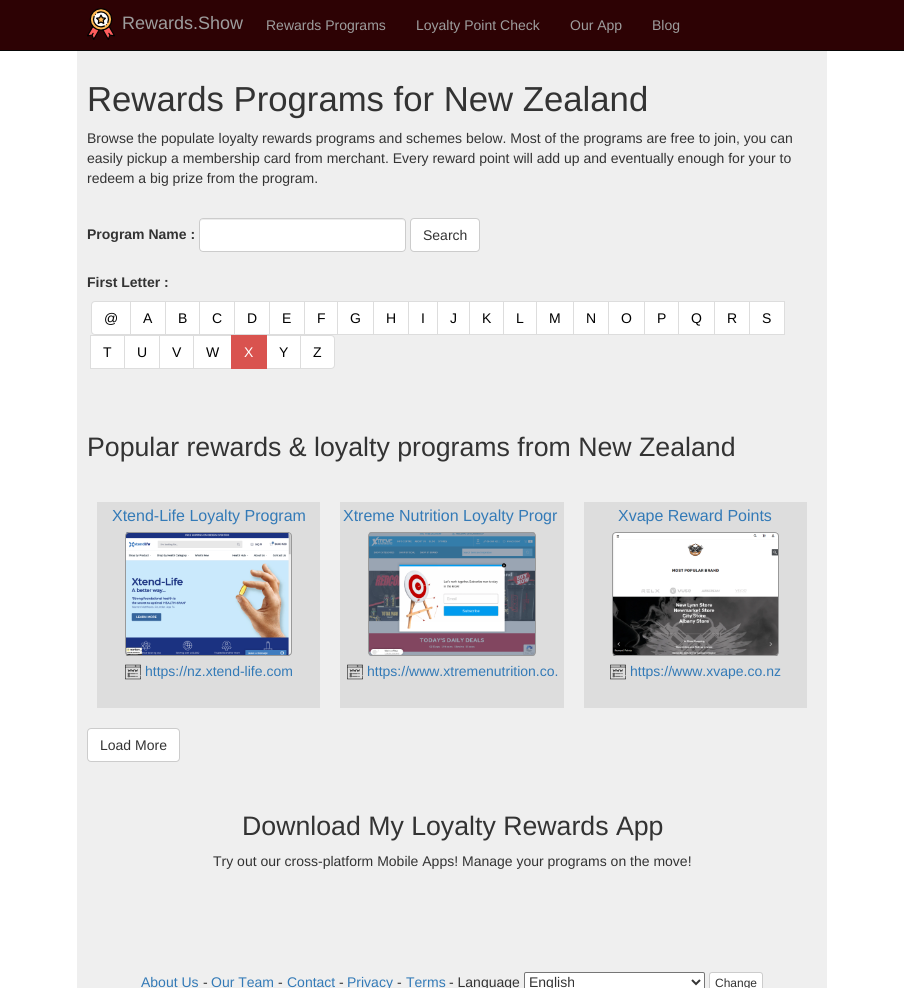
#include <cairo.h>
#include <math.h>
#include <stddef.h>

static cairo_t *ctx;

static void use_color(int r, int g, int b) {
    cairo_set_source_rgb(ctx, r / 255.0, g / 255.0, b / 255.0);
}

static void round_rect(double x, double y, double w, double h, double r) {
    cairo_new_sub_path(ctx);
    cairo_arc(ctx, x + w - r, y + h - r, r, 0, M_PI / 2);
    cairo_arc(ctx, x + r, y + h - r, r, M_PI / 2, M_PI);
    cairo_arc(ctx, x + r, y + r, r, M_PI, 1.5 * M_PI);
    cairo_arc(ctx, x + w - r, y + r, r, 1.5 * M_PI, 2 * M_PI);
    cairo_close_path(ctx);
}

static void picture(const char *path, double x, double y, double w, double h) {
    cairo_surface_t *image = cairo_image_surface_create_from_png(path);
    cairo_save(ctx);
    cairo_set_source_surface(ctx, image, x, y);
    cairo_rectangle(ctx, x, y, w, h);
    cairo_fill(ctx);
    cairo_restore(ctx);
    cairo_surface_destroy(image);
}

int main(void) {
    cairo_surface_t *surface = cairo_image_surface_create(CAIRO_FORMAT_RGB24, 904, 988);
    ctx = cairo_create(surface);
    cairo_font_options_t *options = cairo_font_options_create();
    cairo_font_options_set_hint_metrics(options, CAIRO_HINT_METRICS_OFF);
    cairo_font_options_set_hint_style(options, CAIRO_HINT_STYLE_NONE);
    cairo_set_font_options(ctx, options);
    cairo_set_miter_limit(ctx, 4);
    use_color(255, 255, 255);
    cairo_paint(ctx);
    use_color(45, 2, 4);
    cairo_rectangle(ctx, 0, 0, 904, 50);
    cairo_fill(ctx);
    use_color(8, 8, 8);
    cairo_rectangle(ctx, 0, 50, 904, 1);
    cairo_fill(ctx);
    picture("img1.png", 87, 8, 28, 32);
    cairo_select_font_face(ctx, "Liberation Sans", CAIRO_FONT_SLANT_NORMAL, CAIRO_FONT_WEIGHT_NORMAL);
    cairo_set_font_size(ctx, 18);
    use_color(157, 157, 157);
    cairo_move_to(ctx, 122, 29);
    cairo_show_text(ctx, "Rewards.Show");
    cairo_set_font_size(ctx, 14);
    cairo_move_to(ctx, 266, 30);
    cairo_show_text(ctx, "Rewards Programs");
    cairo_move_to(ctx, 416, 30);
    cairo_show_text(ctx, "Loyalty Point Check");
    cairo_move_to(ctx, 570, 30);
    cairo_show_text(ctx, "Our App");
    cairo_move_to(ctx, 652, 30);
    cairo_show_text(ctx, "Blog");
    use_color(239, 239, 239);
    cairo_rectangle(ctx, 77, 51, 750, 937);
    cairo_fill(ctx);
    cairo_set_font_size(ctx, 34.7);
    use_color(51, 51, 51);
    cairo_move_to(ctx, 87, 111);
    cairo_show_text(ctx, "Rewards Programs for New Zealand");
    cairo_set_font_size(ctx, 14);
    cairo_move_to(ctx, 87, 143);
    cairo_show_text(ctx, "Browse the populate loyalty rewards programs and schemes below. Most of the programs are free to join, you can");
    cairo_move_to(ctx, 87, 163);
    cairo_show_text(ctx, "easily pickup a membership card from merchant. Every reward point will add up and eventually enough for your to");
    cairo_move_to(ctx, 87, 183);
    cairo_show_text(ctx, "redeem a big prize from the program.");
    cairo_select_font_face(ctx, "Liberation Sans", CAIRO_FONT_SLANT_NORMAL, CAIRO_FONT_WEIGHT_BOLD);
    cairo_move_to(ctx, 87, 239);
    cairo_show_text(ctx, "Program Name :");
    use_color(255, 255, 255);
    round_rect(199, 218, 207, 34, 4);
    cairo_fill(ctx);
    use_color(236, 236, 236);
    cairo_new_path(ctx);
    cairo_move_to(ctx, 203, 220);
    cairo_line_to(ctx, 402, 220);
    cairo_curve_to(ctx, 404, 220, 405, 221, 405, 223);
    cairo_curve_to(ctx, 405, 221, 404, 219, 402, 219);
    cairo_line_to(ctx, 203, 219);
    cairo_curve_to(ctx, 201, 219, 200, 221, 200, 223);
    cairo_curve_to(ctx, 200, 221, 201, 220, 203, 220);
    cairo_close_path(ctx);
    cairo_fill(ctx);
    round_rect(199.5, 218.5, 206, 33, 3.5);
    use_color(204, 204, 204);
    cairo_set_line_width(ctx, 1);
    cairo_stroke(ctx);
    use_color(255, 255, 255);
    round_rect(410.5, 218.5, 69, 33, 3.5);
    cairo_fill_preserve(ctx);
    use_color(204, 204, 204);
    cairo_stroke(ctx);
    cairo_select_font_face(ctx, "Liberation Sans", CAIRO_FONT_SLANT_NORMAL, CAIRO_FONT_WEIGHT_NORMAL);
    use_color(51, 51, 51);
    cairo_move_to(ctx, 423, 240);
    cairo_show_text(ctx, "Search");
    cairo_select_font_face(ctx, "Liberation Sans", CAIRO_FONT_SLANT_NORMAL, CAIRO_FONT_WEIGHT_BOLD);
    cairo_move_to(ctx, 87, 287);
    cairo_show_text(ctx, "First Letter :");
    use_color(255, 255, 255);
    cairo_new_path(ctx);
    cairo_move_to(ctx, 95, 301.5);
    cairo_line_to(ctx, 130.5, 301.5);
    cairo_line_to(ctx, 130.5, 334.5);
    cairo_line_to(ctx, 95, 334.5);
    cairo_curve_to(ctx, 93, 334.5, 91.5, 333, 91.5, 331);
    cairo_line_to(ctx, 91.5, 305);
    cairo_curve_to(ctx, 91.5, 303, 93, 301.5, 95, 301.5);
    cairo_close_path(ctx);
    cairo_fill_preserve(ctx);
    use_color(221, 221, 221);
    cairo_stroke(ctx);
    cairo_select_font_face(ctx, "Liberation Sans", CAIRO_FONT_SLANT_NORMAL, CAIRO_FONT_WEIGHT_NORMAL);
    use_color(0, 0, 0);
    cairo_move_to(ctx, 104, 323);
    cairo_show_text(ctx, "@");
    use_color(255, 255, 255);
    cairo_rectangle(ctx, 130.5, 301.5, 35, 33);
    cairo_fill_preserve(ctx);
    use_color(221, 221, 221);
    cairo_stroke(ctx);
    use_color(0, 0, 0);
    cairo_move_to(ctx, 143, 323);
    cairo_show_text(ctx, "A");
    use_color(255, 255, 255);
    cairo_rectangle(ctx, 165.5, 301.5, 34, 33);
    cairo_fill_preserve(ctx);
    use_color(221, 221, 221);
    cairo_stroke(ctx);
    use_color(0, 0, 0);
    cairo_move_to(ctx, 178, 323);
    cairo_show_text(ctx, "B");
    use_color(255, 255, 255);
    cairo_rectangle(ctx, 199.5, 301.5, 35, 33);
    cairo_fill_preserve(ctx);
    use_color(221, 221, 221);
    cairo_stroke(ctx);
    use_color(0, 0, 0);
    cairo_move_to(ctx, 212, 323);
    cairo_show_text(ctx, "C");
    use_color(255, 255, 255);
    cairo_rectangle(ctx, 234.5, 301.5, 35, 33);
    cairo_fill_preserve(ctx);
    use_color(221, 221, 221);
    cairo_stroke(ctx);
    use_color(0, 0, 0);
    cairo_move_to(ctx, 247, 323);
    cairo_show_text(ctx, "D");
    use_color(255, 255, 255);
    cairo_rectangle(ctx, 269.5, 301.5, 35, 33);
    cairo_fill_preserve(ctx);
    use_color(221, 221, 221);
    cairo_stroke(ctx);
    use_color(0, 0, 0);
    cairo_move_to(ctx, 282, 323);
    cairo_show_text(ctx, "E");
    use_color(255, 255, 255);
    cairo_rectangle(ctx, 304.5, 301.5, 33, 33);
    cairo_fill_preserve(ctx);
    use_color(221, 221, 221);
    cairo_stroke(ctx);
    use_color(0, 0, 0);
    cairo_move_to(ctx, 317, 323);
    cairo_show_text(ctx, "F");
    use_color(255, 255, 255);
    cairo_rectangle(ctx, 337.5, 301.5, 36, 33);
    cairo_fill_preserve(ctx);
    use_color(221, 221, 221);
    cairo_stroke(ctx);
    use_color(0, 0, 0);
    cairo_move_to(ctx, 350, 323);
    cairo_show_text(ctx, "G");
    use_color(255, 255, 255);
    cairo_rectangle(ctx, 373.5, 301.5, 35, 33);
    cairo_fill_preserve(ctx);
    use_color(221, 221, 221);
    cairo_stroke(ctx);
    use_color(0, 0, 0);
    cairo_move_to(ctx, 386, 323);
    cairo_show_text(ctx, "H");
    use_color(255, 255, 255);
    cairo_rectangle(ctx, 408.5, 301.5, 29, 33);
    cairo_fill_preserve(ctx);
    use_color(221, 221, 221);
    cairo_stroke(ctx);
    use_color(0, 0, 0);
    cairo_move_to(ctx, 421, 323);
    cairo_show_text(ctx, "I");
    use_color(255, 255, 255);
    cairo_rectangle(ctx, 437.5, 301.5, 32, 33);
    cairo_fill_preserve(ctx);
    use_color(221, 221, 221);
    cairo_stroke(ctx);
    use_color(0, 0, 0);
    cairo_move_to(ctx, 450, 323);
    cairo_show_text(ctx, "J");
    use_color(255, 255, 255);
    cairo_rectangle(ctx, 469.5, 301.5, 34, 33);
    cairo_fill_preserve(ctx);
    use_color(221, 221, 221);
    cairo_stroke(ctx);
    use_color(0, 0, 0);
    cairo_move_to(ctx, 482, 323);
    cairo_show_text(ctx, "K");
    use_color(255, 255, 255);
    cairo_rectangle(ctx, 503.5, 301.5, 33, 33);
    cairo_fill_preserve(ctx);
    use_color(221, 221, 221);
    cairo_stroke(ctx);
    use_color(0, 0, 0);
    cairo_move_to(ctx, 516, 323);
    cairo_show_text(ctx, "L");
    use_color(255, 255, 255);
    cairo_rectangle(ctx, 536.5, 301.5, 37, 33);
    cairo_fill_preserve(ctx);
    use_color(221, 221, 221);
    cairo_stroke(ctx);
    use_color(0, 0, 0);
    cairo_move_to(ctx, 549, 323);
    cairo_show_text(ctx, "M");
    use_color(255, 255, 255);
    cairo_rectangle(ctx, 573.5, 301.5, 35, 33);
    cairo_fill_preserve(ctx);
    use_color(221, 221, 221);
    cairo_stroke(ctx);
    use_color(0, 0, 0);
    cairo_move_to(ctx, 586, 323);
    cairo_show_text(ctx, "N");
    use_color(255, 255, 255);
    cairo_rectangle(ctx, 608.5, 301.5, 36, 33);
    cairo_fill_preserve(ctx);
    use_color(221, 221, 221);
    cairo_stroke(ctx);
    use_color(0, 0, 0);
    cairo_move_to(ctx, 621, 323);
    cairo_show_text(ctx, "O");
    use_color(255, 255, 255);
    cairo_rectangle(ctx, 644.5, 301.5, 34, 33);
    cairo_fill_preserve(ctx);
    use_color(221, 221, 221);
    cairo_stroke(ctx);
    use_color(0, 0, 0);
    cairo_move_to(ctx, 657, 323);
    cairo_show_text(ctx, "P");
    use_color(255, 255, 255);
    cairo_rectangle(ctx, 678.5, 301.5, 36, 33);
    cairo_fill_preserve(ctx);
    use_color(221, 221, 221);
    cairo_stroke(ctx);
    use_color(0, 0, 0);
    cairo_move_to(ctx, 691, 323);
    cairo_show_text(ctx, "Q");
    use_color(255, 255, 255);
    cairo_rectangle(ctx, 714.5, 301.5, 35, 33);
    cairo_fill_preserve(ctx);
    use_color(221, 221, 221);
    cairo_stroke(ctx);
    use_color(0, 0, 0);
    cairo_move_to(ctx, 727, 323);
    cairo_show_text(ctx, "R");
    use_color(255, 255, 255);
    cairo_rectangle(ctx, 749.5, 301.5, 35, 33);
    cairo_fill_preserve(ctx);
    use_color(221, 221, 221);
    cairo_stroke(ctx);
    use_color(0, 0, 0);
    cairo_move_to(ctx, 762, 323);
    cairo_show_text(ctx, "S");
    use_color(255, 255, 255);
    cairo_rectangle(ctx, 90.5, 335.5, 34, 33);
    cairo_fill_preserve(ctx);
    use_color(221, 221, 221);
    cairo_stroke(ctx);
    use_color(0, 0, 0);
    cairo_move_to(ctx, 103, 357);
    cairo_show_text(ctx, "T");
    use_color(255, 255, 255);
    cairo_rectangle(ctx, 124.5, 335.5, 35, 33);
    cairo_fill_preserve(ctx);
    use_color(221, 221, 221);
    cairo_stroke(ctx);
    use_color(0, 0, 0);
    cairo_move_to(ctx, 137, 357);
    cairo_show_text(ctx, "U");
    use_color(255, 255, 255);
    cairo_rectangle(ctx, 159.5, 335.5, 34, 33);
    cairo_fill_preserve(ctx);
    use_color(221, 221, 221);
    cairo_stroke(ctx);
    use_color(0, 0, 0);
    cairo_move_to(ctx, 172, 357);
    cairo_show_text(ctx, "V");
    use_color(255, 255, 255);
    cairo_rectangle(ctx, 193.5, 335.5, 38, 33);
    cairo_fill_preserve(ctx);
    use_color(221, 221, 221);
    cairo_stroke(ctx);
    use_color(0, 0, 0);
    cairo_move_to(ctx, 206, 357);
    cairo_show_text(ctx, "W");
    use_color(255, 255, 255);
    cairo_rectangle(ctx, 266.5, 335.5, 34, 33);
    cairo_fill_preserve(ctx);
    use_color(221, 221, 221);
    cairo_stroke(ctx);
    use_color(217, 83, 79);
    cairo_rectangle(ctx, 231, 335, 36, 34);
    cairo_fill(ctx);
    use_color(255, 255, 255);
    cairo_move_to(ctx, 244, 357);
    cairo_show_text(ctx, "X");
    use_color(0, 0, 0);
    cairo_move_to(ctx, 279, 357);
    cairo_show_text(ctx, "Y");
    use_color(255, 255, 255);
    cairo_new_path(ctx);
    cairo_move_to(ctx, 300.5, 335.5);
    cairo_line_to(ctx, 331, 335.5);
    cairo_curve_to(ctx, 333, 335.5, 334.5, 337, 334.5, 339);
    cairo_line_to(ctx, 334.5, 365);
    cairo_curve_to(ctx, 334.5, 367, 333, 368.5, 331, 368.5);
    cairo_line_to(ctx, 300.5, 368.5);
    cairo_close_path(ctx);
    cairo_fill_preserve(ctx);
    use_color(221, 221, 221);
    cairo_stroke(ctx);
    use_color(0, 0, 0);
    cairo_move_to(ctx, 313, 357);
    cairo_show_text(ctx, "Z");
    cairo_set_font_size(ctx, 26.7);
    use_color(51, 51, 51);
    cairo_move_to(ctx, 87, 456);
    cairo_show_text(ctx, "Popular rewards & loyalty programs from New Zealand");
    use_color(221, 221, 221);
    cairo_rectangle(ctx, 97, 502, 223, 206);
    cairo_fill(ctx);
    cairo_set_font_size(ctx, 16);
    use_color(51, 122, 183);
    cairo_move_to(ctx, 112, 521);
    cairo_show_text(ctx, "Xtend-Life Loyalty Program");
    picture("img2.png", 126, 532, 165, 124);
    round_rect(125.5, 532.5, 166, 123, 3.5);
    use_color(153, 153, 153);
    cairo_stroke(ctx);
    picture("img3.png", 125, 664, 16, 16);
    cairo_set_font_size(ctx, 14);
    use_color(51, 122, 183);
    cairo_move_to(ctx, 145, 676);
    cairo_show_text(ctx, "https://nz.xtend-life.com");
    use_color(221, 221, 221);
    cairo_rectangle(ctx, 340, 502, 224, 206);
    cairo_fill(ctx);
    cairo_set_font_size(ctx, 16);
    use_color(51, 122, 183);
    cairo_move_to(ctx, 343, 521);
    cairo_show_text(ctx, "Xtreme Nutrition Loyalty Progr");
    picture("img4.png", 369, 532, 166, 124);
    round_rect(368.5, 532.5, 167, 123, 3.5);
    use_color(153, 153, 153);
    cairo_stroke(ctx);
    picture("img3.png", 347, 664, 16, 16);
    cairo_set_font_size(ctx, 14);
    use_color(51, 122, 183);
    cairo_move_to(ctx, 367, 676);
    cairo_show_text(ctx, "https://www.xtremenutrition.co.");
    use_color(221, 221, 221);
    cairo_rectangle(ctx, 584, 502, 223, 206);
    cairo_fill(ctx);
    cairo_set_font_size(ctx, 16);
    use_color(51, 122, 183);
    cairo_move_to(ctx, 618, 521);
    cairo_show_text(ctx, "Xvape Reward Points");
    picture("img5.png", 613, 532, 165, 124);
    round_rect(612.5, 532.5, 166, 123, 3.5);
    use_color(153, 153, 153);
    cairo_stroke(ctx);
    picture("img3.png", 610, 664, 16, 16);
    cairo_set_font_size(ctx, 14);
    use_color(51, 122, 183);
    cairo_move_to(ctx, 630, 676);
    cairo_show_text(ctx, "https://www.xvape.co.nz");
    use_color(255, 255, 255);
    round_rect(87.5, 728.5, 92, 33, 3.5);
    cairo_fill_preserve(ctx);
    use_color(204, 204, 204);
    cairo_stroke(ctx);
    use_color(51, 51, 51);
    cairo_move_to(ctx, 100, 750);
    cairo_show_text(ctx, "Load More");
    cairo_set_font_size(ctx, 26.7);
    cairo_move_to(ctx, 242, 835);
    cairo_show_text(ctx, "Download My Loyalty Rewards App");
    cairo_set_font_size(ctx, 14);
    cairo_move_to(ctx, 213, 866);
    cairo_show_text(ctx, "Try out our cross-platform Mobile Apps! Manage your programs on the move!");
    use_color(51, 122, 183);
    cairo_move_to(ctx, 141, 987);
    cairo_show_text(ctx, "About Us");
    use_color(51, 51, 51);
    cairo_move_to(ctx, 203, 987);
    cairo_show_text(ctx, "-");
    use_color(51, 122, 183);
    cairo_move_to(ctx, 211, 987);
    cairo_show_text(ctx, "Our Team");
    use_color(51, 51, 51);
    cairo_move_to(ctx, 278, 987);
    cairo_show_text(ctx, "-");
    use_color(51, 122, 183);
    cairo_move_to(ctx, 287, 987);
    cairo_show_text(ctx, "Contact");
    use_color(51, 51, 51);
    cairo_move_to(ctx, 339, 987);
    cairo_show_text(ctx, "-");
    use_color(51, 122, 183);
    cairo_move_to(ctx, 347, 987);
    cairo_show_text(ctx, "Privacy");
    use_color(51, 51, 51);
    cairo_move_to(ctx, 397, 987);
    cairo_show_text(ctx, "-");
    use_color(51, 122, 183);
    cairo_move_to(ctx, 406, 987);
    cairo_show_text(ctx, "Terms");
    use_color(51, 51, 51);
    cairo_move_to(ctx, 449, 987);
    cairo_show_text(ctx, "- Language");
    use_color(255, 255, 255);
    round_rect(524.5, 972.5, 180, 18, 1.5);
    cairo_fill_preserve(ctx);
    use_color(118, 118, 118);
    cairo_stroke(ctx);
    cairo_new_path(ctx);
    cairo_move_to(ctx, 692, 980);
    cairo_line_to(ctx, 696, 984);
    cairo_line_to(ctx, 700, 980);
    use_color(51, 51, 51);
    cairo_set_line_width(ctx, 2);
    cairo_stroke(ctx);
    cairo_move_to(ctx, 529, 987);
    cairo_show_text(ctx, "English");
    use_color(255, 255, 255);
    round_rect(709.5, 972.5, 53, 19, 2.5);
    cairo_fill_preserve(ctx);
    use_color(204, 204, 204);
    cairo_set_line_width(ctx, 1);
    cairo_stroke(ctx);
    cairo_set_font_size(ctx, 12);
    use_color(51, 51, 51);
    cairo_move_to(ctx, 715, 987);
    cairo_show_text(ctx, "Change");
    cairo_surface_write_to_png(surface, "result.png");
    cairo_font_options_destroy(options);
    cairo_destroy(ctx);
    cairo_surface_destroy(surface);
    return 0;
}
